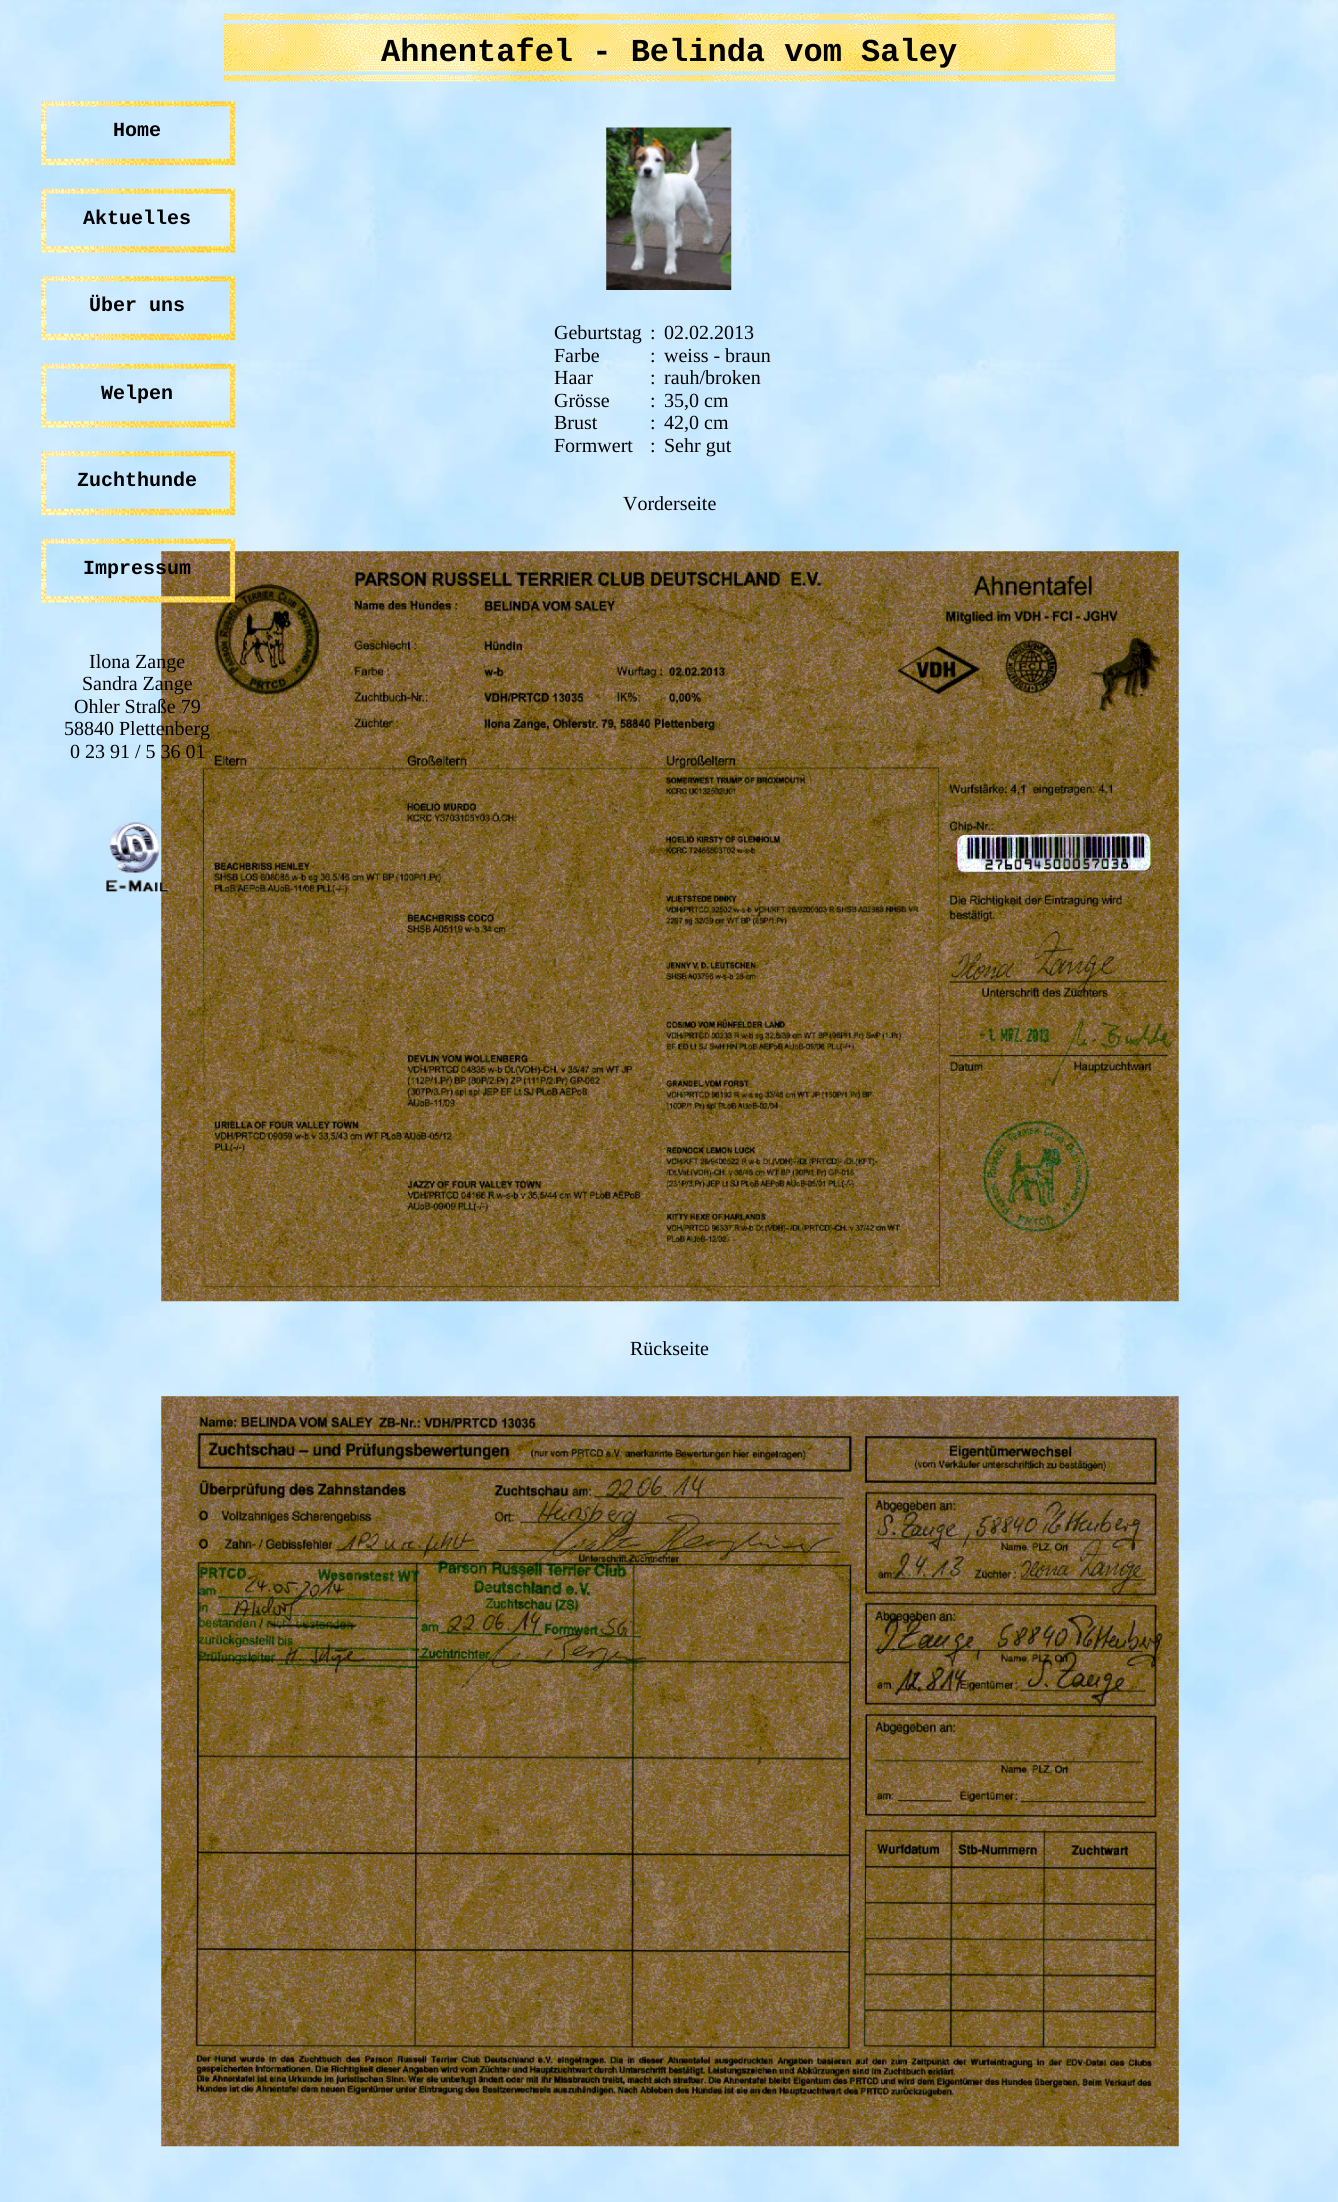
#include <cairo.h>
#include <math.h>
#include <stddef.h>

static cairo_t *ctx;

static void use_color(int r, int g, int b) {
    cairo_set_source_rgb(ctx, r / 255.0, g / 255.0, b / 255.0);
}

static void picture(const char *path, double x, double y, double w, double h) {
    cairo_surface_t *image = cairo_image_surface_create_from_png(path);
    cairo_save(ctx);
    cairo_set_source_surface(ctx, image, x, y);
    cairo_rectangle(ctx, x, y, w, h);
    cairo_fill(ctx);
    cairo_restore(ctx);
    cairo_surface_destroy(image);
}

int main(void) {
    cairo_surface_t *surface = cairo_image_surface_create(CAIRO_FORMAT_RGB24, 1338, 2202);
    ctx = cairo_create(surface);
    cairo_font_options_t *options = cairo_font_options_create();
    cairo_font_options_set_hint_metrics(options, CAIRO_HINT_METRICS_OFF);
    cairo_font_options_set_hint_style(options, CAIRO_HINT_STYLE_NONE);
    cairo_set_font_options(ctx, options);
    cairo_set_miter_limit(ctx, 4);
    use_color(255, 255, 255);
    cairo_paint(ctx);
    picture("img1.png", 0, 0, 1338, 2202);
    picture("img2.png", 223, 13, 892, 69);
    cairo_select_font_face(ctx, "Liberation Mono", CAIRO_FONT_SLANT_NORMAL, CAIRO_FONT_WEIGHT_BOLD);
    cairo_set_font_size(ctx, 32);
    use_color(0, 0, 0);
    cairo_move_to(ctx, 381, 61);
    cairo_show_text(ctx, "Ahnentafel - Belinda vom Saley");
    picture("img3.png", 41, 101, 195, 65);
    cairo_set_font_size(ctx, 20);
    cairo_move_to(ctx, 113, 136);
    cairo_show_text(ctx, "Home");
    picture("img4.png", 41, 188, 195, 65);
    cairo_move_to(ctx, 83, 224);
    cairo_show_text(ctx, "Aktuelles");
    picture("img5.png", 41, 276, 195, 65);
    cairo_move_to(ctx, 89, 311);
    cairo_show_text(ctx, "Über uns");
    picture("img6.png", 41, 363, 195, 65);
    cairo_move_to(ctx, 101, 399);
    cairo_show_text(ctx, "Welpen");
    picture("img7.png", 41, 451, 195, 65);
    cairo_move_to(ctx, 77, 486);
    cairo_show_text(ctx, "Zuchthunde");
    picture("img11.png", 161, 551, 1018, 751);
    picture("img8.png", 41, 538, 195, 65);
    cairo_move_to(ctx, 83, 574);
    cairo_show_text(ctx, "Impressum");
    cairo_select_font_face(ctx, "Liberation Serif", CAIRO_FONT_SLANT_NORMAL, CAIRO_FONT_WEIGHT_NORMAL);
    cairo_move_to(ctx, 89, 668);
    cairo_show_text(ctx, "Ilona Zange");
    cairo_move_to(ctx, 82, 690);
    cairo_show_text(ctx, "Sandra Zange");
    cairo_move_to(ctx, 74, 713);
    cairo_show_text(ctx, "Ohler Straße 79");
    cairo_move_to(ctx, 64, 735);
    cairo_show_text(ctx, "58840 Plettenberg");
    cairo_move_to(ctx, 70, 758);
    cairo_show_text(ctx, "0 23 91 / 5 36 01");
    picture("img9.png", 106, 822, 63, 70);
    picture("img10.png", 606, 127, 126, 163);
    cairo_move_to(ctx, 554, 339);
    cairo_show_text(ctx, "Geburtstag");
    cairo_move_to(ctx, 650, 339);
    cairo_show_text(ctx, ":");
    cairo_move_to(ctx, 664, 339);
    cairo_show_text(ctx, "02.02.2013");
    cairo_move_to(ctx, 554, 362);
    cairo_show_text(ctx, "Farbe");
    cairo_move_to(ctx, 650, 362);
    cairo_show_text(ctx, ":");
    cairo_move_to(ctx, 664, 362);
    cairo_show_text(ctx, "weiss - braun");
    cairo_move_to(ctx, 554, 384);
    cairo_show_text(ctx, "Haar");
    cairo_move_to(ctx, 650, 384);
    cairo_show_text(ctx, ":");
    cairo_move_to(ctx, 664, 384);
    cairo_show_text(ctx, "rauh/broken");
    cairo_move_to(ctx, 554, 407);
    cairo_show_text(ctx, "Grösse");
    cairo_move_to(ctx, 650, 407);
    cairo_show_text(ctx, ":");
    cairo_move_to(ctx, 664, 407);
    cairo_show_text(ctx, "35,0 cm");
    cairo_move_to(ctx, 554, 429);
    cairo_show_text(ctx, "Brust");
    cairo_move_to(ctx, 650, 429);
    cairo_show_text(ctx, ":");
    cairo_move_to(ctx, 664, 429);
    cairo_show_text(ctx, "42,0 cm");
    cairo_move_to(ctx, 554, 452);
    cairo_show_text(ctx, "Formwert");
    cairo_move_to(ctx, 650, 452);
    cairo_show_text(ctx, ":");
    cairo_move_to(ctx, 664, 452);
    cairo_show_text(ctx, "Sehr gut");
    cairo_move_to(ctx, 623, 510);
    cairo_show_text(ctx, "Vorderseite");
    cairo_move_to(ctx, 630, 1355);
    cairo_show_text(ctx, "Rückseite");
    picture("img12.png", 161, 1396, 1018, 751);
    cairo_surface_write_to_png(surface, "result.png");
    cairo_font_options_destroy(options);
    cairo_destroy(ctx);
    cairo_surface_destroy(surface);
    return 0;
}
